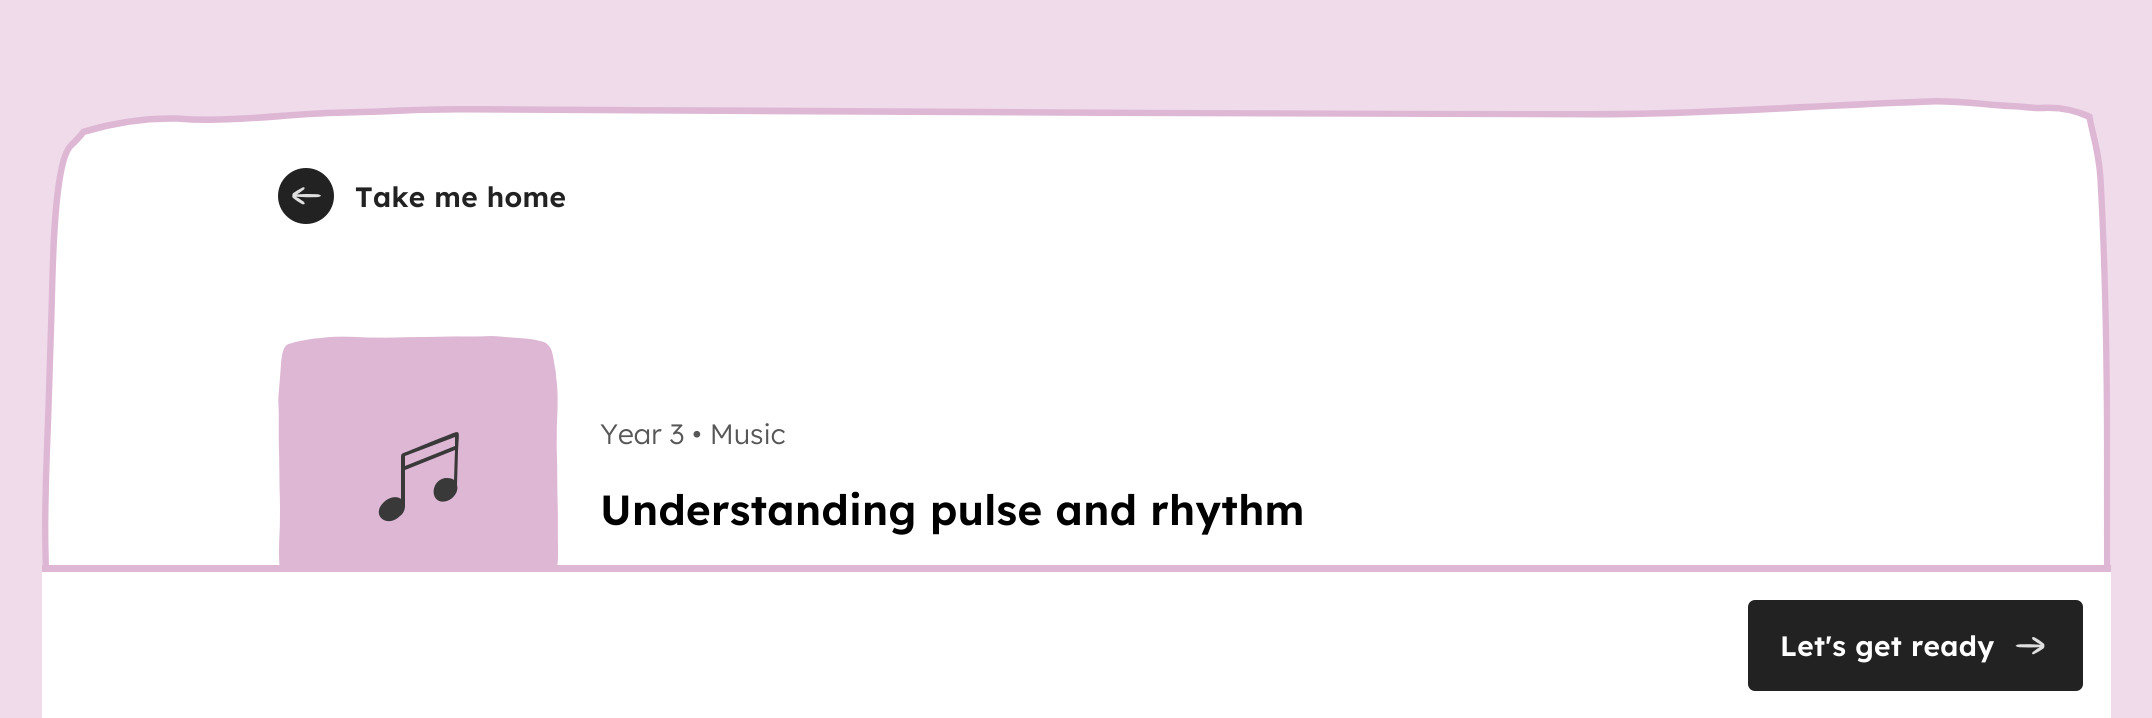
#include <cairo.h>
#include <math.h>
#include <stddef.h>

static cairo_t *ctx;

static void use_color(int r, int g, int b) {
    cairo_set_source_rgb(ctx, r / 255.0, g / 255.0, b / 255.0);
}

static void spaced_text(double x, double y, const char *s, double letter, double word) {
    cairo_move_to(ctx, x, y);
    while (*s) {
        char ch[5] = {0};
        int n = 0;
        do ch[n++] = *s++; while ((*s & 0xC0) == 0x80);
        cairo_show_text(ctx, ch);
        cairo_rel_move_to(ctx, letter + word * (*ch == ' '), 0);
    }
}

static void round_rect(double x, double y, double w, double h, double r) {
    cairo_new_sub_path(ctx);
    cairo_arc(ctx, x + w - r, y + h - r, r, 0, M_PI / 2);
    cairo_arc(ctx, x + r, y + h - r, r, M_PI / 2, M_PI);
    cairo_arc(ctx, x + r, y + r, r, M_PI, 1.5 * M_PI);
    cairo_arc(ctx, x + w - r, y + r, r, 1.5 * M_PI, 2 * M_PI);
    cairo_close_path(ctx);
}

static void picture(const char *path, double x, double y, double w, double h) {
    cairo_surface_t *image = cairo_image_surface_create_from_png(path);
    cairo_save(ctx);
    cairo_set_source_surface(ctx, image, x, y);
    cairo_rectangle(ctx, x, y, w, h);
    cairo_fill(ctx);
    cairo_restore(ctx);
    cairo_surface_destroy(image);
}

int main(void) {
    cairo_surface_t *surface = cairo_image_surface_create(CAIRO_FORMAT_RGB24, 2152, 718);
    ctx = cairo_create(surface);
    cairo_font_options_t *options = cairo_font_options_create();
    cairo_font_options_set_hint_metrics(options, CAIRO_HINT_METRICS_OFF);
    cairo_font_options_set_hint_style(options, CAIRO_HINT_STYLE_NONE);
    cairo_set_font_options(ctx, options);
    cairo_set_miter_limit(ctx, 4);
    use_color(239, 219, 234);
    cairo_paint(ctx);
    picture("img1.png", 42, 98, 2069, 467);
    use_color(34, 34, 34);
    cairo_arc(ctx, 306, 196, 28, 0, 2 * M_PI);
    cairo_fill(ctx);
    picture("img2.png", 292, 187, 29, 18);
    cairo_select_font_face(ctx, "Lexend SemiBold", CAIRO_FONT_SLANT_NORMAL, CAIRO_FONT_WEIGHT_NORMAL);
    cairo_set_font_size(ctx, 28);
    spaced_text(355, 207, "Take me home", 0.3, 0);
    picture("img3.png", 278, 336, 280, 229);
    use_color(57, 57, 57);
    cairo_set_fill_rule(ctx, CAIRO_FILL_RULE_EVEN_ODD);
    cairo_new_path(ctx);
    cairo_move_to(ctx, 405, 506);
    cairo_curve_to(ctx, 405, 510, 403, 514, 400, 516);
    cairo_curve_to(ctx, 387, 529, 370, 515, 384, 502);
    cairo_curve_to(ctx, 388, 498, 396, 495, 401, 499);
    cairo_line_to(ctx, 401, 463);
    cairo_curve_to(ctx, 401, 451, 400, 455, 411, 450);
    cairo_line_to(ctx, 438, 439);
    cairo_curve_to(ctx, 463, 430, 459, 426, 458, 451);
    cairo_line_to(ctx, 457, 485);
    cairo_curve_to(ctx, 459, 492, 453, 499, 447, 501);
    cairo_curve_to(ctx, 430, 506, 429, 481, 445, 478);
    cairo_curve_to(ctx, 448, 478, 452, 478, 454, 480);
    cairo_line_to(ctx, 455, 450);
    cairo_line_to(ctx, 405, 470);
    cairo_close_path(ctx);
    cairo_move_to(ctx, 455, 446);
    cairo_line_to(ctx, 455, 437);
    cairo_line_to(ctx, 405, 456);
    cairo_line_to(ctx, 405, 466);
    cairo_close_path(ctx);
    cairo_fill(ctx);
    cairo_select_font_face(ctx, "Lexend Light", CAIRO_FONT_SLANT_NORMAL, CAIRO_FONT_WEIGHT_NORMAL);
    use_color(87, 87, 87);
    cairo_move_to(ctx, 600, 444);
    cairo_show_text(ctx, "Year 3 • Music");
    cairo_select_font_face(ctx, "Lexend SemiBold", CAIRO_FONT_SLANT_NORMAL, CAIRO_FONT_WEIGHT_NORMAL);
    cairo_set_font_size(ctx, 42);
    use_color(0, 0, 0);
    spaced_text(600, 525, "Understanding pulse and rhythm", 0.3, 0);
    use_color(255, 255, 255);
    cairo_rectangle(ctx, 42, 572, 2069, 146);
    cairo_fill(ctx);
    use_color(222, 183, 213);
    cairo_rectangle(ctx, 42, 565, 2069, 7);
    cairo_fill(ctx);
    use_color(34, 34, 34);
    round_rect(1750, 602, 331, 87, 5);
    cairo_fill_preserve(ctx);
    cairo_set_line_width(ctx, 4);
    cairo_stroke(ctx);
    cairo_set_font_size(ctx, 28);
    use_color(255, 255, 255);
    spaced_text(1780, 656, "Let's get ready", 0.3, 0);
    picture("img4.png", 2015, 637, 30, 18);
    cairo_surface_write_to_png(surface, "result.png");
    cairo_font_options_destroy(options);
    cairo_destroy(ctx);
    cairo_surface_destroy(surface);
    return 0;
}
